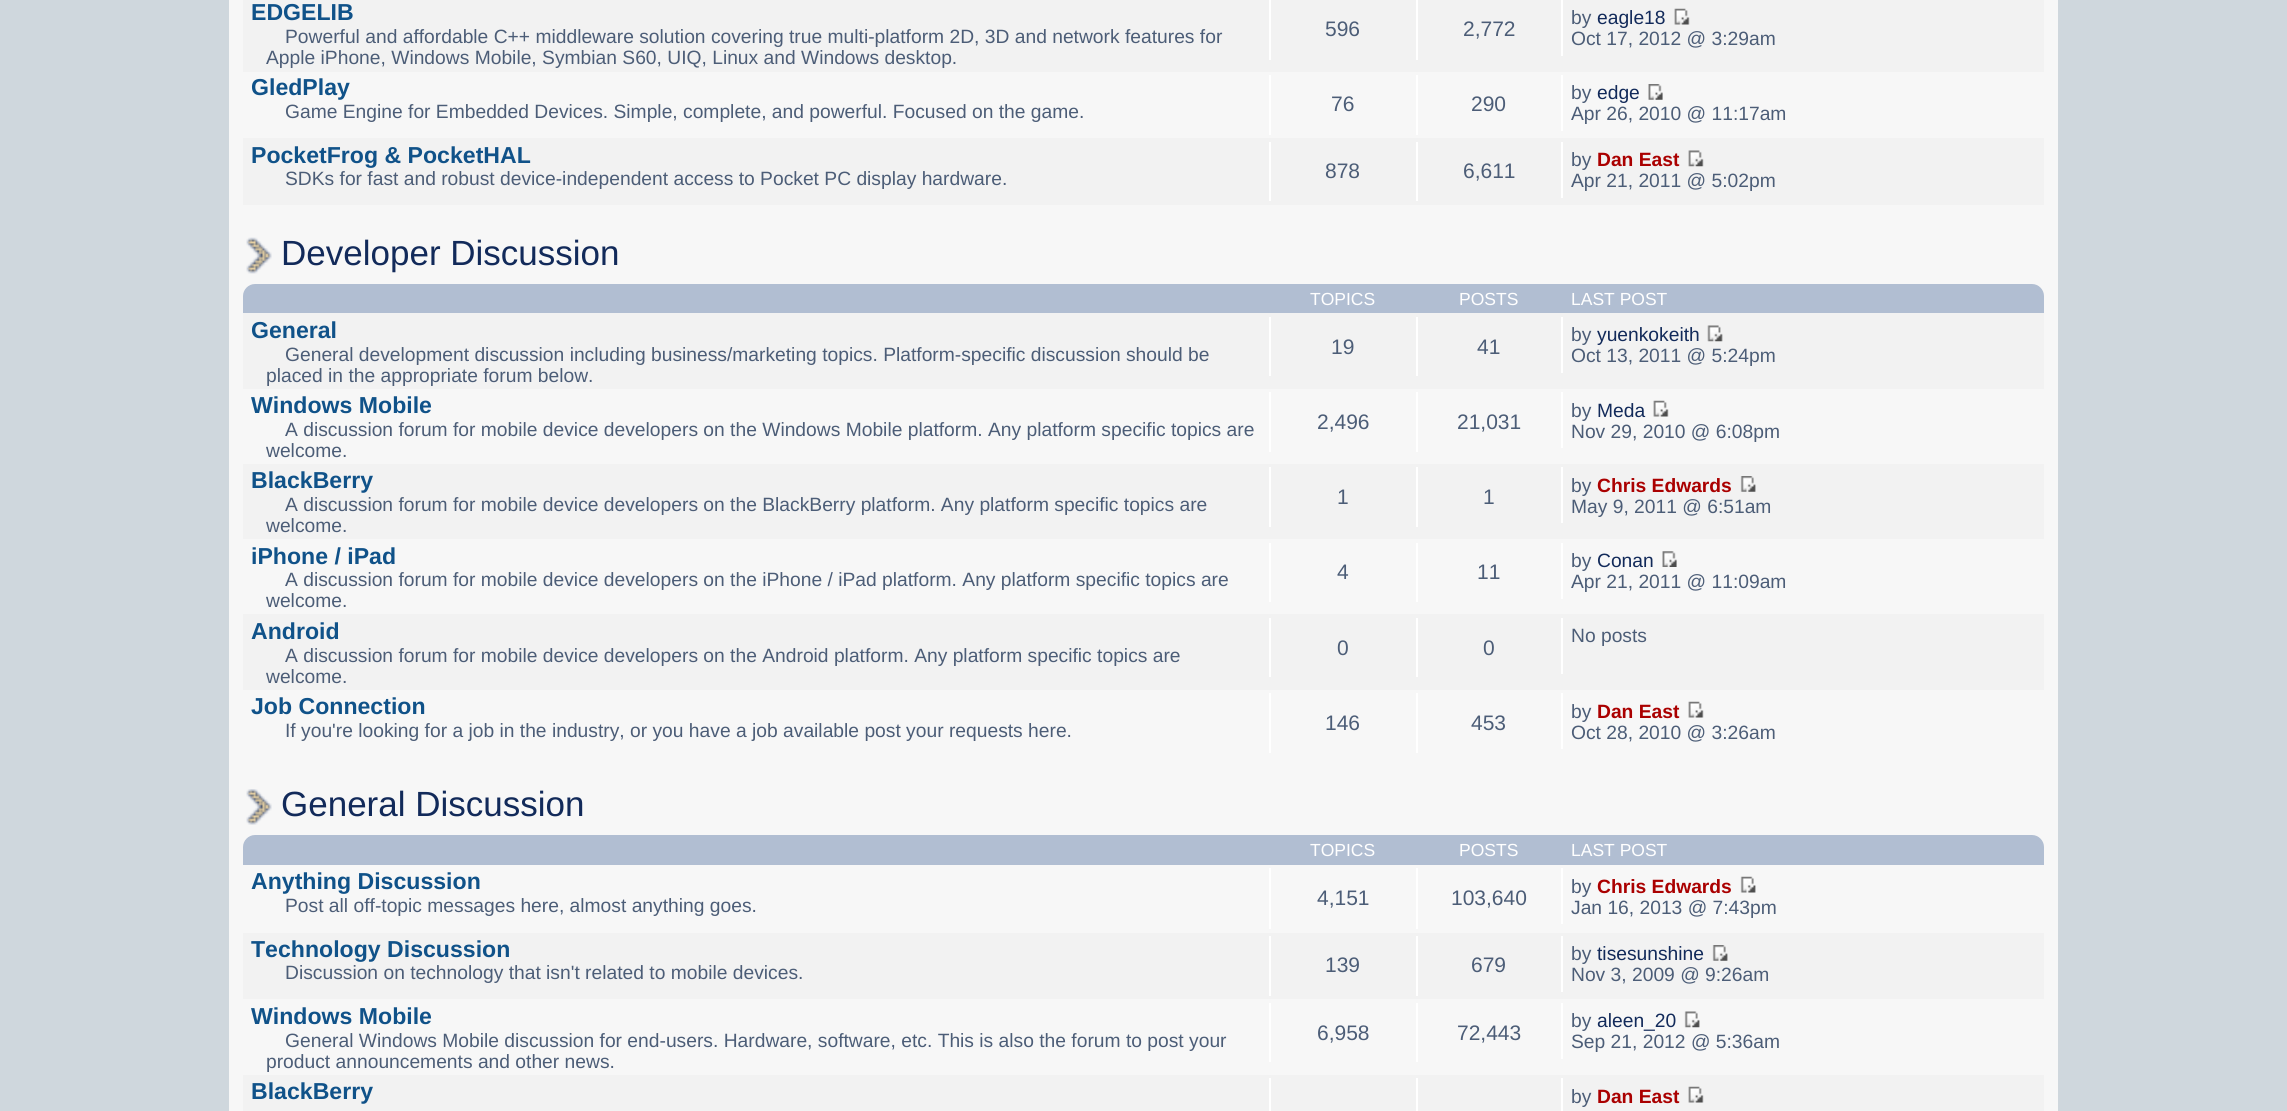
#include <cairo.h>
#include <math.h>
#include <stddef.h>

static cairo_t *ctx;

static void use_color(int r, int g, int b) {
    cairo_set_source_rgb(ctx, r / 255.0, g / 255.0, b / 255.0);
}

static void picture(const char *path, double x, double y, double w, double h) {
    cairo_surface_t *image = cairo_image_surface_create_from_png(path);
    cairo_save(ctx);
    cairo_set_source_surface(ctx, image, x, y);
    cairo_rectangle(ctx, x, y, w, h);
    cairo_fill(ctx);
    cairo_restore(ctx);
    cairo_surface_destroy(image);
}

int main(void) {
    cairo_surface_t *surface = cairo_image_surface_create(CAIRO_FORMAT_RGB24, 2287, 1111);
    ctx = cairo_create(surface);
    cairo_font_options_t *options = cairo_font_options_create();
    cairo_font_options_set_hint_metrics(options, CAIRO_HINT_METRICS_OFF);
    cairo_font_options_set_hint_style(options, CAIRO_HINT_STYLE_NONE);
    cairo_set_font_options(ctx, options);
    cairo_set_miter_limit(ctx, 4);
    use_color(207, 215, 221);
    cairo_paint(ctx);
    use_color(247, 247, 247);
    cairo_rectangle(ctx, 229, 0, 1829, 1111);
    cairo_fill(ctx);
    use_color(242, 242, 242);
    cairo_rectangle(ctx, 243, 0, 1801, 72);
    cairo_fill(ctx);
    cairo_select_font_face(ctx, "Liberation Sans", CAIRO_FONT_SLANT_NORMAL, CAIRO_FONT_WEIGHT_BOLD);
    cairo_set_font_size(ctx, 23.1);
    use_color(16, 82, 137);
    cairo_move_to(ctx, 251, 20);
    cairo_show_text(ctx, "EDGELIB");
    cairo_select_font_face(ctx, "Liberation Sans", CAIRO_FONT_SLANT_NORMAL, CAIRO_FONT_WEIGHT_NORMAL);
    cairo_set_font_size(ctx, 19.25);
    use_color(76, 93, 119);
    cairo_move_to(ctx, 285, 43);
    cairo_show_text(ctx, "Powerful and affordable C++ middleware solution covering true multi-platform 2D, 3D and network features for");
    cairo_move_to(ctx, 266, 64);
    cairo_show_text(ctx, "Apple iPhone, Windows Mobile, Symbian S60, UIQ, Linux and Windows desktop.");
    use_color(255, 255, 255);
    cairo_rectangle(ctx, 1269, 0, 2, 60);
    cairo_fill(ctx);
    cairo_set_font_size(ctx, 21);
    use_color(76, 93, 119);
    cairo_move_to(ctx, 1325, 36);
    cairo_show_text(ctx, "596");
    use_color(255, 255, 255);
    cairo_rectangle(ctx, 1416, 0, 2, 60);
    cairo_fill(ctx);
    use_color(76, 93, 119);
    cairo_move_to(ctx, 1463, 36);
    cairo_show_text(ctx, "2,772");
    use_color(255, 255, 255);
    cairo_rectangle(ctx, 1561, 0, 2, 56);
    cairo_fill(ctx);
    cairo_set_font_size(ctx, 19.25);
    use_color(76, 93, 119);
    cairo_move_to(ctx, 1571, 24);
    cairo_show_text(ctx, "by");
    use_color(18, 42, 90);
    cairo_move_to(ctx, 1597, 24);
    cairo_show_text(ctx, "eagle18");
    picture("img1.png", 1674, 8, 16, 17);
    use_color(76, 93, 119);
    cairo_move_to(ctx, 1571, 45);
    cairo_show_text(ctx, "Oct 17, 2012 @ 3:29am");
    cairo_select_font_face(ctx, "Liberation Sans", CAIRO_FONT_SLANT_NORMAL, CAIRO_FONT_WEIGHT_BOLD);
    cairo_set_font_size(ctx, 23.1);
    use_color(16, 82, 137);
    cairo_move_to(ctx, 251, 95);
    cairo_show_text(ctx, "GledPlay");
    cairo_select_font_face(ctx, "Liberation Sans", CAIRO_FONT_SLANT_NORMAL, CAIRO_FONT_WEIGHT_NORMAL);
    cairo_set_font_size(ctx, 19.25);
    use_color(76, 93, 119);
    cairo_move_to(ctx, 285, 118);
    cairo_show_text(ctx, "Game Engine for Embedded Devices. Simple, complete, and powerful. Focused on the game.");
    use_color(255, 255, 255);
    cairo_rectangle(ctx, 1269, 75, 2, 60);
    cairo_fill(ctx);
    cairo_set_font_size(ctx, 21);
    use_color(76, 93, 119);
    cairo_move_to(ctx, 1331, 111);
    cairo_show_text(ctx, "76");
    use_color(255, 255, 255);
    cairo_rectangle(ctx, 1416, 75, 2, 60);
    cairo_fill(ctx);
    use_color(76, 93, 119);
    cairo_move_to(ctx, 1471, 111);
    cairo_show_text(ctx, "290");
    use_color(255, 255, 255);
    cairo_rectangle(ctx, 1561, 75, 2, 56);
    cairo_fill(ctx);
    cairo_set_font_size(ctx, 19.25);
    use_color(76, 93, 119);
    cairo_move_to(ctx, 1571, 99);
    cairo_show_text(ctx, "by");
    use_color(18, 42, 90);
    cairo_move_to(ctx, 1597, 99);
    cairo_show_text(ctx, "edge");
    picture("img2.png", 1648, 84, 15, 16);
    use_color(76, 93, 119);
    cairo_move_to(ctx, 1571, 120);
    cairo_show_text(ctx, "Apr 26, 2010 @ 11:17am");
    use_color(242, 242, 242);
    cairo_rectangle(ctx, 243, 138, 1801, 67);
    cairo_fill(ctx);
    cairo_select_font_face(ctx, "Liberation Sans", CAIRO_FONT_SLANT_NORMAL, CAIRO_FONT_WEIGHT_BOLD);
    cairo_set_font_size(ctx, 23.1);
    use_color(16, 82, 137);
    cairo_move_to(ctx, 251, 163);
    cairo_show_text(ctx, "PocketFrog & PocketHAL");
    cairo_select_font_face(ctx, "Liberation Sans", CAIRO_FONT_SLANT_NORMAL, CAIRO_FONT_WEIGHT_NORMAL);
    cairo_set_font_size(ctx, 19.25);
    use_color(76, 93, 119);
    cairo_move_to(ctx, 285, 185);
    cairo_show_text(ctx, "SDKs for fast and robust device-independent access to Pocket PC display hardware.");
    use_color(255, 255, 255);
    cairo_rectangle(ctx, 1269, 142, 2, 59);
    cairo_fill(ctx);
    cairo_set_font_size(ctx, 21);
    use_color(76, 93, 119);
    cairo_move_to(ctx, 1325, 178);
    cairo_show_text(ctx, "878");
    use_color(255, 255, 255);
    cairo_rectangle(ctx, 1416, 142, 2, 59);
    cairo_fill(ctx);
    use_color(76, 93, 119);
    cairo_move_to(ctx, 1463, 178);
    cairo_show_text(ctx, "6,611");
    use_color(255, 255, 255);
    cairo_rectangle(ctx, 1561, 142, 2, 56);
    cairo_fill(ctx);
    cairo_set_font_size(ctx, 19.25);
    use_color(76, 93, 119);
    cairo_move_to(ctx, 1571, 166);
    cairo_show_text(ctx, "by");
    cairo_select_font_face(ctx, "Liberation Sans", CAIRO_FONT_SLANT_NORMAL, CAIRO_FONT_WEIGHT_BOLD);
    use_color(170, 0, 0);
    cairo_move_to(ctx, 1597, 166);
    cairo_show_text(ctx, "Dan East");
    picture("img3.png", 1688, 150, 16, 17);
    cairo_select_font_face(ctx, "Liberation Sans", CAIRO_FONT_SLANT_NORMAL, CAIRO_FONT_WEIGHT_NORMAL);
    use_color(76, 93, 119);
    cairo_move_to(ctx, 1571, 187);
    cairo_show_text(ctx, "Apr 21, 2011 @ 5:02pm");
    picture("img4.png", 246, 237, 26, 37);
    cairo_set_font_size(ctx, 35);
    use_color(18, 42, 90);
    cairo_move_to(ctx, 281, 265);
    cairo_show_text(ctx, "Developer Discussion");
    use_color(177, 190, 210);
    cairo_new_path(ctx);
    cairo_move_to(ctx, 255, 284);
    cairo_line_to(ctx, 2032, 284);
    cairo_curve_to(ctx, 2038.5, 284, 2044, 289.5, 2044, 296);
    cairo_line_to(ctx, 2044, 313);
    cairo_line_to(ctx, 243, 313);
    cairo_line_to(ctx, 243, 296);
    cairo_curve_to(ctx, 243, 289.5, 248.5, 284, 255, 284);
    cairo_close_path(ctx);
    cairo_fill(ctx);
    cairo_set_font_size(ctx, 17.5);
    use_color(255, 255, 255);
    cairo_move_to(ctx, 1310, 305);
    cairo_show_text(ctx, "TOPICS");
    cairo_move_to(ctx, 1459, 305);
    cairo_show_text(ctx, "POSTS");
    cairo_move_to(ctx, 1571, 305);
    cairo_show_text(ctx, "LAST POST");
    use_color(242, 242, 242);
    cairo_rectangle(ctx, 243, 313, 1801, 76);
    cairo_fill(ctx);
    cairo_select_font_face(ctx, "Liberation Sans", CAIRO_FONT_SLANT_NORMAL, CAIRO_FONT_WEIGHT_BOLD);
    cairo_set_font_size(ctx, 23.1);
    use_color(16, 82, 137);
    cairo_move_to(ctx, 251, 338);
    cairo_show_text(ctx, "General");
    cairo_select_font_face(ctx, "Liberation Sans", CAIRO_FONT_SLANT_NORMAL, CAIRO_FONT_WEIGHT_NORMAL);
    cairo_set_font_size(ctx, 19.25);
    use_color(76, 93, 119);
    cairo_move_to(ctx, 285, 361);
    cairo_show_text(ctx, "General development discussion including business/marketing topics. Platform-specific discussion should be");
    cairo_move_to(ctx, 266, 382);
    cairo_show_text(ctx, "placed in the appropriate forum below.");
    use_color(255, 255, 255);
    cairo_rectangle(ctx, 1269, 317, 2, 59);
    cairo_fill(ctx);
    cairo_set_font_size(ctx, 21);
    use_color(76, 93, 119);
    cairo_move_to(ctx, 1331, 354);
    cairo_show_text(ctx, "19");
    use_color(255, 255, 255);
    cairo_rectangle(ctx, 1416, 317, 2, 59);
    cairo_fill(ctx);
    use_color(76, 93, 119);
    cairo_move_to(ctx, 1477, 354);
    cairo_show_text(ctx, "41");
    use_color(255, 255, 255);
    cairo_rectangle(ctx, 1561, 317, 2, 56);
    cairo_fill(ctx);
    cairo_set_font_size(ctx, 19.25);
    use_color(76, 93, 119);
    cairo_move_to(ctx, 1571, 341);
    cairo_show_text(ctx, "by");
    use_color(18, 42, 90);
    cairo_move_to(ctx, 1597, 341);
    cairo_show_text(ctx, "yuenkokeith");
    picture("img5.png", 1707, 325, 16, 17);
    use_color(76, 93, 119);
    cairo_move_to(ctx, 1571, 362);
    cairo_show_text(ctx, "Oct 13, 2011 @ 5:24pm");
    cairo_select_font_face(ctx, "Liberation Sans", CAIRO_FONT_SLANT_NORMAL, CAIRO_FONT_WEIGHT_BOLD);
    cairo_set_font_size(ctx, 23.1);
    use_color(16, 82, 137);
    cairo_move_to(ctx, 251, 413);
    cairo_show_text(ctx, "Windows Mobile");
    cairo_select_font_face(ctx, "Liberation Sans", CAIRO_FONT_SLANT_NORMAL, CAIRO_FONT_WEIGHT_NORMAL);
    cairo_set_font_size(ctx, 19.25);
    use_color(76, 93, 119);
    cairo_move_to(ctx, 285, 436);
    cairo_show_text(ctx, "A discussion forum for mobile device developers on the Windows Mobile platform. Any platform specific topics are");
    cairo_move_to(ctx, 266, 457);
    cairo_show_text(ctx, "welcome.");
    use_color(255, 255, 255);
    cairo_rectangle(ctx, 1269, 392, 2, 60);
    cairo_fill(ctx);
    cairo_set_font_size(ctx, 21);
    use_color(76, 93, 119);
    cairo_move_to(ctx, 1317, 429);
    cairo_show_text(ctx, "2,496");
    use_color(255, 255, 255);
    cairo_rectangle(ctx, 1416, 392, 2, 60);
    cairo_fill(ctx);
    use_color(76, 93, 119);
    cairo_move_to(ctx, 1457, 429);
    cairo_show_text(ctx, "21,031");
    use_color(255, 255, 255);
    cairo_rectangle(ctx, 1561, 392, 2, 56);
    cairo_fill(ctx);
    cairo_set_font_size(ctx, 19.25);
    use_color(76, 93, 119);
    cairo_move_to(ctx, 1571, 417);
    cairo_show_text(ctx, "by");
    use_color(18, 42, 90);
    cairo_move_to(ctx, 1597, 417);
    cairo_show_text(ctx, "Meda");
    picture("img6.png", 1653, 400, 16, 17);
    use_color(76, 93, 119);
    cairo_move_to(ctx, 1571, 438);
    cairo_show_text(ctx, "Nov 29, 2010 @ 6:08pm");
    use_color(242, 242, 242);
    cairo_rectangle(ctx, 243, 464, 1801, 75);
    cairo_fill(ctx);
    cairo_select_font_face(ctx, "Liberation Sans", CAIRO_FONT_SLANT_NORMAL, CAIRO_FONT_WEIGHT_BOLD);
    cairo_set_font_size(ctx, 23.1);
    use_color(16, 82, 137);
    cairo_move_to(ctx, 251, 488);
    cairo_show_text(ctx, "BlackBerry");
    cairo_select_font_face(ctx, "Liberation Sans", CAIRO_FONT_SLANT_NORMAL, CAIRO_FONT_WEIGHT_NORMAL);
    cairo_set_font_size(ctx, 19.25);
    use_color(76, 93, 119);
    cairo_move_to(ctx, 285, 511);
    cairo_show_text(ctx, "A discussion forum for mobile device developers on the BlackBerry platform. Any platform specific topics are");
    cairo_move_to(ctx, 266, 532);
    cairo_show_text(ctx, "welcome.");
    use_color(255, 255, 255);
    cairo_rectangle(ctx, 1269, 467, 2, 60);
    cairo_fill(ctx);
    cairo_set_font_size(ctx, 21);
    use_color(76, 93, 119);
    cairo_move_to(ctx, 1337, 504);
    cairo_show_text(ctx, "1");
    use_color(255, 255, 255);
    cairo_rectangle(ctx, 1416, 467, 2, 60);
    cairo_fill(ctx);
    use_color(76, 93, 119);
    cairo_move_to(ctx, 1483, 504);
    cairo_show_text(ctx, "1");
    use_color(255, 255, 255);
    cairo_rectangle(ctx, 1561, 467, 2, 56);
    cairo_fill(ctx);
    cairo_set_font_size(ctx, 19.25);
    use_color(76, 93, 119);
    cairo_move_to(ctx, 1571, 492);
    cairo_show_text(ctx, "by");
    cairo_select_font_face(ctx, "Liberation Sans", CAIRO_FONT_SLANT_NORMAL, CAIRO_FONT_WEIGHT_BOLD);
    use_color(170, 0, 0);
    cairo_move_to(ctx, 1597, 492);
    cairo_show_text(ctx, "Chris Edwards");
    picture("img7.png", 1740, 476, 16, 16);
    cairo_select_font_face(ctx, "Liberation Sans", CAIRO_FONT_SLANT_NORMAL, CAIRO_FONT_WEIGHT_NORMAL);
    use_color(76, 93, 119);
    cairo_move_to(ctx, 1571, 513);
    cairo_show_text(ctx, "May 9, 2011 @ 6:51am");
    cairo_select_font_face(ctx, "Liberation Sans", CAIRO_FONT_SLANT_NORMAL, CAIRO_FONT_WEIGHT_BOLD);
    cairo_set_font_size(ctx, 23.1);
    use_color(16, 82, 137);
    cairo_move_to(ctx, 251, 564);
    cairo_show_text(ctx, "iPhone / iPad");
    cairo_select_font_face(ctx, "Liberation Sans", CAIRO_FONT_SLANT_NORMAL, CAIRO_FONT_WEIGHT_NORMAL);
    cairo_set_font_size(ctx, 19.25);
    use_color(76, 93, 119);
    cairo_move_to(ctx, 285, 586);
    cairo_show_text(ctx, "A discussion forum for mobile device developers on the iPhone / iPad platform. Any platform specific topics are");
    cairo_move_to(ctx, 266, 607);
    cairo_show_text(ctx, "welcome.");
    use_color(255, 255, 255);
    cairo_rectangle(ctx, 1269, 543, 2, 59);
    cairo_fill(ctx);
    cairo_set_font_size(ctx, 21);
    use_color(76, 93, 119);
    cairo_move_to(ctx, 1337, 579);
    cairo_show_text(ctx, "4");
    use_color(255, 255, 255);
    cairo_rectangle(ctx, 1416, 543, 2, 59);
    cairo_fill(ctx);
    use_color(76, 93, 119);
    cairo_move_to(ctx, 1477, 579);
    cairo_show_text(ctx, "11");
    use_color(255, 255, 255);
    cairo_rectangle(ctx, 1561, 543, 2, 56);
    cairo_fill(ctx);
    cairo_set_font_size(ctx, 19.25);
    use_color(76, 93, 119);
    cairo_move_to(ctx, 1571, 567);
    cairo_show_text(ctx, "by");
    use_color(18, 42, 90);
    cairo_move_to(ctx, 1597, 567);
    cairo_show_text(ctx, "Conan");
    picture("img8.png", 1662, 551, 15, 16);
    use_color(76, 93, 119);
    cairo_move_to(ctx, 1571, 588);
    cairo_show_text(ctx, "Apr 21, 2011 @ 11:09am");
    use_color(242, 242, 242);
    cairo_rectangle(ctx, 243, 614, 1801, 76);
    cairo_fill(ctx);
    cairo_select_font_face(ctx, "Liberation Sans", CAIRO_FONT_SLANT_NORMAL, CAIRO_FONT_WEIGHT_BOLD);
    cairo_set_font_size(ctx, 23.1);
    use_color(16, 82, 137);
    cairo_move_to(ctx, 251, 639);
    cairo_show_text(ctx, "Android");
    cairo_select_font_face(ctx, "Liberation Sans", CAIRO_FONT_SLANT_NORMAL, CAIRO_FONT_WEIGHT_NORMAL);
    cairo_set_font_size(ctx, 19.25);
    use_color(76, 93, 119);
    cairo_move_to(ctx, 285, 662);
    cairo_show_text(ctx, "A discussion forum for mobile device developers on the Android platform. Any platform specific topics are");
    cairo_move_to(ctx, 266, 683);
    cairo_show_text(ctx, "welcome.");
    use_color(255, 255, 255);
    cairo_rectangle(ctx, 1561, 618, 2, 56);
    cairo_fill(ctx);
    use_color(76, 93, 119);
    cairo_move_to(ctx, 1571, 642);
    cairo_show_text(ctx, "No posts");
    use_color(255, 255, 255);
    cairo_rectangle(ctx, 1269, 618, 2, 59);
    cairo_fill(ctx);
    cairo_set_font_size(ctx, 21);
    use_color(76, 93, 119);
    cairo_move_to(ctx, 1337, 655);
    cairo_show_text(ctx, "0");
    use_color(255, 255, 255);
    cairo_rectangle(ctx, 1416, 618, 2, 59);
    cairo_fill(ctx);
    use_color(76, 93, 119);
    cairo_move_to(ctx, 1483, 655);
    cairo_show_text(ctx, "0");
    cairo_select_font_face(ctx, "Liberation Sans", CAIRO_FONT_SLANT_NORMAL, CAIRO_FONT_WEIGHT_BOLD);
    cairo_set_font_size(ctx, 23.1);
    use_color(16, 82, 137);
    cairo_move_to(ctx, 251, 714);
    cairo_show_text(ctx, "Job Connection");
    cairo_select_font_face(ctx, "Liberation Sans", CAIRO_FONT_SLANT_NORMAL, CAIRO_FONT_WEIGHT_NORMAL);
    cairo_set_font_size(ctx, 19.25);
    use_color(76, 93, 119);
    cairo_move_to(ctx, 285, 737);
    cairo_show_text(ctx, "If you're looking for a job in the industry, or you have a job available post your requests here.");
    use_color(255, 255, 255);
    cairo_rectangle(ctx, 1269, 693, 2, 60);
    cairo_fill(ctx);
    cairo_set_font_size(ctx, 21);
    use_color(76, 93, 119);
    cairo_move_to(ctx, 1325, 730);
    cairo_show_text(ctx, "146");
    use_color(255, 255, 255);
    cairo_rectangle(ctx, 1416, 693, 2, 60);
    cairo_fill(ctx);
    use_color(76, 93, 119);
    cairo_move_to(ctx, 1471, 730);
    cairo_show_text(ctx, "453");
    use_color(255, 255, 255);
    cairo_rectangle(ctx, 1561, 693, 2, 56);
    cairo_fill(ctx);
    cairo_set_font_size(ctx, 19.25);
    use_color(76, 93, 119);
    cairo_move_to(ctx, 1571, 718);
    cairo_show_text(ctx, "by");
    cairo_select_font_face(ctx, "Liberation Sans", CAIRO_FONT_SLANT_NORMAL, CAIRO_FONT_WEIGHT_BOLD);
    use_color(170, 0, 0);
    cairo_move_to(ctx, 1597, 718);
    cairo_show_text(ctx, "Dan East");
    picture("img6.png", 1688, 701, 16, 17);
    cairo_select_font_face(ctx, "Liberation Sans", CAIRO_FONT_SLANT_NORMAL, CAIRO_FONT_WEIGHT_NORMAL);
    use_color(76, 93, 119);
    cairo_move_to(ctx, 1571, 739);
    cairo_show_text(ctx, "Oct 28, 2010 @ 3:26am");
    picture("img9.png", 246, 789, 26, 36);
    cairo_set_font_size(ctx, 35);
    use_color(18, 42, 90);
    cairo_move_to(ctx, 281, 816);
    cairo_show_text(ctx, "General Discussion");
    use_color(177, 190, 210);
    cairo_new_path(ctx);
    cairo_move_to(ctx, 255, 835);
    cairo_line_to(ctx, 2032, 835);
    cairo_curve_to(ctx, 2038.5, 835, 2044, 840.5, 2044, 847);
    cairo_line_to(ctx, 2044, 865);
    cairo_line_to(ctx, 243, 865);
    cairo_line_to(ctx, 243, 847);
    cairo_curve_to(ctx, 243, 840.5, 248.5, 835, 255, 835);
    cairo_close_path(ctx);
    cairo_fill(ctx);
    cairo_set_font_size(ctx, 17.5);
    use_color(255, 255, 255);
    cairo_move_to(ctx, 1310, 856);
    cairo_show_text(ctx, "TOPICS");
    cairo_move_to(ctx, 1459, 856);
    cairo_show_text(ctx, "POSTS");
    cairo_move_to(ctx, 1571, 856);
    cairo_show_text(ctx, "LAST POST");
    cairo_select_font_face(ctx, "Liberation Sans", CAIRO_FONT_SLANT_NORMAL, CAIRO_FONT_WEIGHT_BOLD);
    cairo_set_font_size(ctx, 23.1);
    use_color(16, 82, 137);
    cairo_move_to(ctx, 251, 889);
    cairo_show_text(ctx, "Anything Discussion");
    cairo_select_font_face(ctx, "Liberation Sans", CAIRO_FONT_SLANT_NORMAL, CAIRO_FONT_WEIGHT_NORMAL);
    cairo_set_font_size(ctx, 19.25);
    use_color(76, 93, 119);
    cairo_move_to(ctx, 285, 912);
    cairo_show_text(ctx, "Post all off-topic messages here, almost anything goes.");
    use_color(255, 255, 255);
    cairo_rectangle(ctx, 1269, 868, 2, 61);
    cairo_fill(ctx);
    cairo_set_font_size(ctx, 21);
    use_color(76, 93, 119);
    cairo_move_to(ctx, 1317, 905);
    cairo_show_text(ctx, "4,151");
    use_color(255, 255, 255);
    cairo_rectangle(ctx, 1416, 868, 2, 61);
    cairo_fill(ctx);
    use_color(76, 93, 119);
    cairo_move_to(ctx, 1451, 905);
    cairo_show_text(ctx, "103,640");
    use_color(255, 255, 255);
    cairo_rectangle(ctx, 1561, 868, 2, 56);
    cairo_fill(ctx);
    cairo_set_font_size(ctx, 19.25);
    use_color(76, 93, 119);
    cairo_move_to(ctx, 1571, 893);
    cairo_show_text(ctx, "by");
    cairo_select_font_face(ctx, "Liberation Sans", CAIRO_FONT_SLANT_NORMAL, CAIRO_FONT_WEIGHT_BOLD);
    use_color(170, 0, 0);
    cairo_move_to(ctx, 1597, 893);
    cairo_show_text(ctx, "Chris Edwards");
    picture("img10.png", 1740, 876, 16, 17);
    cairo_select_font_face(ctx, "Liberation Sans", CAIRO_FONT_SLANT_NORMAL, CAIRO_FONT_WEIGHT_NORMAL);
    use_color(76, 93, 119);
    cairo_move_to(ctx, 1571, 914);
    cairo_show_text(ctx, "Jan 16, 2013 @ 7:43pm");
    use_color(242, 242, 242);
    cairo_rectangle(ctx, 243, 933, 1801, 66);
    cairo_fill(ctx);
    cairo_select_font_face(ctx, "Liberation Sans", CAIRO_FONT_SLANT_NORMAL, CAIRO_FONT_WEIGHT_BOLD);
    cairo_set_font_size(ctx, 23.1);
    use_color(16, 82, 137);
    cairo_move_to(ctx, 251, 957);
    cairo_show_text(ctx, "Technology Discussion");
    cairo_select_font_face(ctx, "Liberation Sans", CAIRO_FONT_SLANT_NORMAL, CAIRO_FONT_WEIGHT_NORMAL);
    cairo_set_font_size(ctx, 19.25);
    use_color(76, 93, 119);
    cairo_move_to(ctx, 285, 979);
    cairo_show_text(ctx, "Discussion on technology that isn't related to mobile devices.");
    use_color(255, 255, 255);
    cairo_rectangle(ctx, 1269, 936, 2, 60);
    cairo_fill(ctx);
    cairo_set_font_size(ctx, 21);
    use_color(76, 93, 119);
    cairo_move_to(ctx, 1325, 972);
    cairo_show_text(ctx, "139");
    use_color(255, 255, 255);
    cairo_rectangle(ctx, 1416, 936, 2, 60);
    cairo_fill(ctx);
    use_color(76, 93, 119);
    cairo_move_to(ctx, 1471, 972);
    cairo_show_text(ctx, "679");
    use_color(255, 255, 255);
    cairo_rectangle(ctx, 1561, 936, 2, 56);
    cairo_fill(ctx);
    cairo_set_font_size(ctx, 19.25);
    use_color(76, 93, 119);
    cairo_move_to(ctx, 1571, 960);
    cairo_show_text(ctx, "by");
    use_color(18, 42, 90);
    cairo_move_to(ctx, 1597, 960);
    cairo_show_text(ctx, "tisesunshine");
    picture("img7.png", 1712, 945, 16, 16);
    use_color(76, 93, 119);
    cairo_move_to(ctx, 1571, 981);
    cairo_show_text(ctx, "Nov 3, 2009 @ 9:26am");
    cairo_select_font_face(ctx, "Liberation Sans", CAIRO_FONT_SLANT_NORMAL, CAIRO_FONT_WEIGHT_BOLD);
    cairo_set_font_size(ctx, 23.1);
    use_color(16, 82, 137);
    cairo_move_to(ctx, 251, 1024);
    cairo_show_text(ctx, "Windows Mobile");
    cairo_select_font_face(ctx, "Liberation Sans", CAIRO_FONT_SLANT_NORMAL, CAIRO_FONT_WEIGHT_NORMAL);
    cairo_set_font_size(ctx, 19.25);
    use_color(76, 93, 119);
    cairo_move_to(ctx, 285, 1047);
    cairo_show_text(ctx, "General Windows Mobile discussion for end-users. Hardware, software, etc. This is also the forum to post your");
    cairo_move_to(ctx, 266, 1068);
    cairo_show_text(ctx, "product announcements and other news.");
    use_color(255, 255, 255);
    cairo_rectangle(ctx, 1269, 1003, 2, 59);
    cairo_fill(ctx);
    cairo_set_font_size(ctx, 21);
    use_color(76, 93, 119);
    cairo_move_to(ctx, 1317, 1040);
    cairo_show_text(ctx, "6,958");
    use_color(255, 255, 255);
    cairo_rectangle(ctx, 1416, 1003, 2, 59);
    cairo_fill(ctx);
    use_color(76, 93, 119);
    cairo_move_to(ctx, 1457, 1040);
    cairo_show_text(ctx, "72,443");
    use_color(255, 255, 255);
    cairo_rectangle(ctx, 1561, 1003, 2, 56);
    cairo_fill(ctx);
    cairo_set_font_size(ctx, 19.25);
    use_color(76, 93, 119);
    cairo_move_to(ctx, 1571, 1027);
    cairo_show_text(ctx, "by");
    use_color(18, 42, 90);
    cairo_move_to(ctx, 1597, 1027);
    cairo_show_text(ctx, "aleen_20");
    picture("img11.png", 1684, 1011, 16, 17);
    use_color(76, 93, 119);
    cairo_move_to(ctx, 1571, 1048);
    cairo_show_text(ctx, "Sep 21, 2012 @ 5:36am");
    use_color(242, 242, 242);
    cairo_rectangle(ctx, 243, 1075, 1801, 36);
    cairo_fill(ctx);
    cairo_select_font_face(ctx, "Liberation Sans", CAIRO_FONT_SLANT_NORMAL, CAIRO_FONT_WEIGHT_BOLD);
    cairo_set_font_size(ctx, 23.1);
    use_color(16, 82, 137);
    cairo_move_to(ctx, 251, 1099);
    cairo_show_text(ctx, "BlackBerry");
    use_color(255, 255, 255);
    cairo_rectangle(ctx, 1269, 1078, 2, 33);
    cairo_fill(ctx);
    cairo_rectangle(ctx, 1416, 1078, 2, 33);
    cairo_fill(ctx);
    cairo_rectangle(ctx, 1561, 1078, 2, 33);
    cairo_fill(ctx);
    cairo_select_font_face(ctx, "Liberation Sans", CAIRO_FONT_SLANT_NORMAL, CAIRO_FONT_WEIGHT_NORMAL);
    cairo_set_font_size(ctx, 19.25);
    use_color(76, 93, 119);
    cairo_move_to(ctx, 1571, 1103);
    cairo_show_text(ctx, "by");
    cairo_select_font_face(ctx, "Liberation Sans", CAIRO_FONT_SLANT_NORMAL, CAIRO_FONT_WEIGHT_BOLD);
    use_color(170, 0, 0);
    cairo_move_to(ctx, 1597, 1103);
    cairo_show_text(ctx, "Dan East");
    picture("img1.png", 1688, 1086, 16, 17);
    cairo_surface_write_to_png(surface, "result.png");
    cairo_font_options_destroy(options);
    cairo_destroy(ctx);
    cairo_surface_destroy(surface);
    return 0;
}
